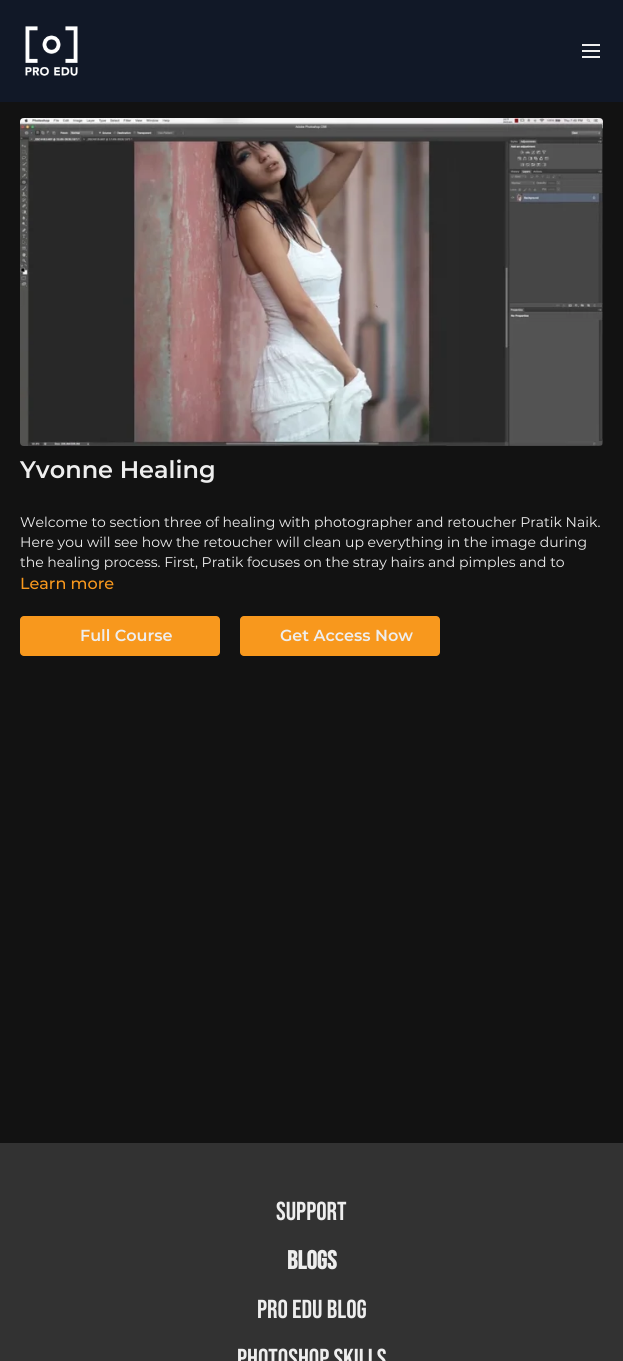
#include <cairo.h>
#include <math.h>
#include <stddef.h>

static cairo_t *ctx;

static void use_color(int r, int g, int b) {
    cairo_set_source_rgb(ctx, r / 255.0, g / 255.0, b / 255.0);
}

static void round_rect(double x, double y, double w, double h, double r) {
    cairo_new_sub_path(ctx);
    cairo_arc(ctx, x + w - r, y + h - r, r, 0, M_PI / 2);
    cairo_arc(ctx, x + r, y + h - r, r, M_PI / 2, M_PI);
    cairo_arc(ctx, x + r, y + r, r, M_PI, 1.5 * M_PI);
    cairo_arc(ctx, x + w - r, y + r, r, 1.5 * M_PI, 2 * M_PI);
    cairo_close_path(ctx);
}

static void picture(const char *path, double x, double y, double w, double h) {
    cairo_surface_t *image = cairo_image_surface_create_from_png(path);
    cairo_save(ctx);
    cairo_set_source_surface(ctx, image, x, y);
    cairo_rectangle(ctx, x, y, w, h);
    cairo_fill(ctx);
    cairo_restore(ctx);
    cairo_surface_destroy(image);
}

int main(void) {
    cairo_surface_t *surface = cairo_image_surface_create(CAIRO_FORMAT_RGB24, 623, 1361);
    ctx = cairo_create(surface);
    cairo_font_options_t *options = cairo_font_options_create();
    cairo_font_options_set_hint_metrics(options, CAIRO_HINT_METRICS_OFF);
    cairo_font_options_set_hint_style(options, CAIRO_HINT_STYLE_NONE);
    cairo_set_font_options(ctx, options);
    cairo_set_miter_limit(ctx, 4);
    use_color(18, 18, 18);
    cairo_paint(ctx);
    use_color(17, 24, 39);
    cairo_rectangle(ctx, 0, 0, 623, 102);
    cairo_fill(ctx);
    picture("img1.png", 25, 26, 53, 50);
    use_color(238, 238, 238);
    cairo_rectangle(ctx, 582, 44, 18, 2);
    cairo_fill(ctx);
    cairo_rectangle(ctx, 582, 50, 18, 2);
    cairo_fill(ctx);
    cairo_rectangle(ctx, 582, 56, 18, 2);
    cairo_fill(ctx);
    picture("img2.png", 20, 118, 583, 328);
    cairo_select_font_face(ctx, "Montserrat SemiBold", CAIRO_FONT_SLANT_NORMAL, CAIRO_FONT_WEIGHT_NORMAL);
    cairo_set_font_size(ctx, 24);
    cairo_move_to(ctx, 20, 478);
    cairo_show_text(ctx, "Yvonne Healing");
    cairo_select_font_face(ctx, "Montserrat", CAIRO_FONT_SLANT_NORMAL, CAIRO_FONT_WEIGHT_NORMAL);
    cairo_set_font_size(ctx, 14);
    cairo_move_to(ctx, 20, 527);
    cairo_show_text(ctx, "Welcome to section three of healing with photographer and retoucher Pratik Naik.");
    cairo_move_to(ctx, 20, 547);
    cairo_show_text(ctx, "Here you will see how the retoucher will clean up everything in the image during");
    cairo_move_to(ctx, 20, 567);
    cairo_show_text(ctx, "the healing process. First, Pratik focuses on the stray hairs and pimples and to");
    cairo_select_font_face(ctx, "Montserrat Medium", CAIRO_FONT_SLANT_NORMAL, CAIRO_FONT_WEIGHT_NORMAL);
    cairo_set_font_size(ctx, 16);
    use_color(248, 152, 29);
    cairo_move_to(ctx, 20, 589);
    cairo_show_text(ctx, "Learn more");
    round_rect(20, 616, 200, 40, 4);
    cairo_fill(ctx);
    cairo_select_font_face(ctx, "Montserrat SemiBold", CAIRO_FONT_SLANT_NORMAL, CAIRO_FONT_WEIGHT_NORMAL);
    use_color(238, 238, 238);
    cairo_move_to(ctx, 80, 641);
    cairo_show_text(ctx, "Full Course");
    use_color(248, 152, 29);
    round_rect(240, 616, 200, 40, 4);
    cairo_fill(ctx);
    use_color(238, 238, 238);
    cairo_move_to(ctx, 280, 641);
    cairo_show_text(ctx, "Get Access Now");
    use_color(50, 50, 50);
    cairo_rectangle(ctx, 0, 1143, 623, 218);
    cairo_fill(ctx);
    cairo_select_font_face(ctx, "Bebas Neue", CAIRO_FONT_SLANT_NORMAL, CAIRO_FONT_WEIGHT_NORMAL);
    cairo_set_font_size(ctx, 26);
    use_color(238, 238, 238);
    cairo_move_to(ctx, 276, 1220);
    cairo_show_text(ctx, "Support");
    cairo_select_font_face(ctx, "Bebas Neue", CAIRO_FONT_SLANT_NORMAL, CAIRO_FONT_WEIGHT_BOLD);
    cairo_move_to(ctx, 287, 1269);
    cairo_show_text(ctx, "BLOGS");
    cairo_select_font_face(ctx, "Bebas Neue", CAIRO_FONT_SLANT_NORMAL, CAIRO_FONT_WEIGHT_NORMAL);
    cairo_move_to(ctx, 257, 1318);
    cairo_show_text(ctx, "PRO EDU Blog");
    cairo_move_to(ctx, 237, 1367);
    cairo_show_text(ctx, "Photoshop Skills");
    cairo_surface_write_to_png(surface, "result.png");
    cairo_font_options_destroy(options);
    cairo_destroy(ctx);
    cairo_surface_destroy(surface);
    return 0;
}
